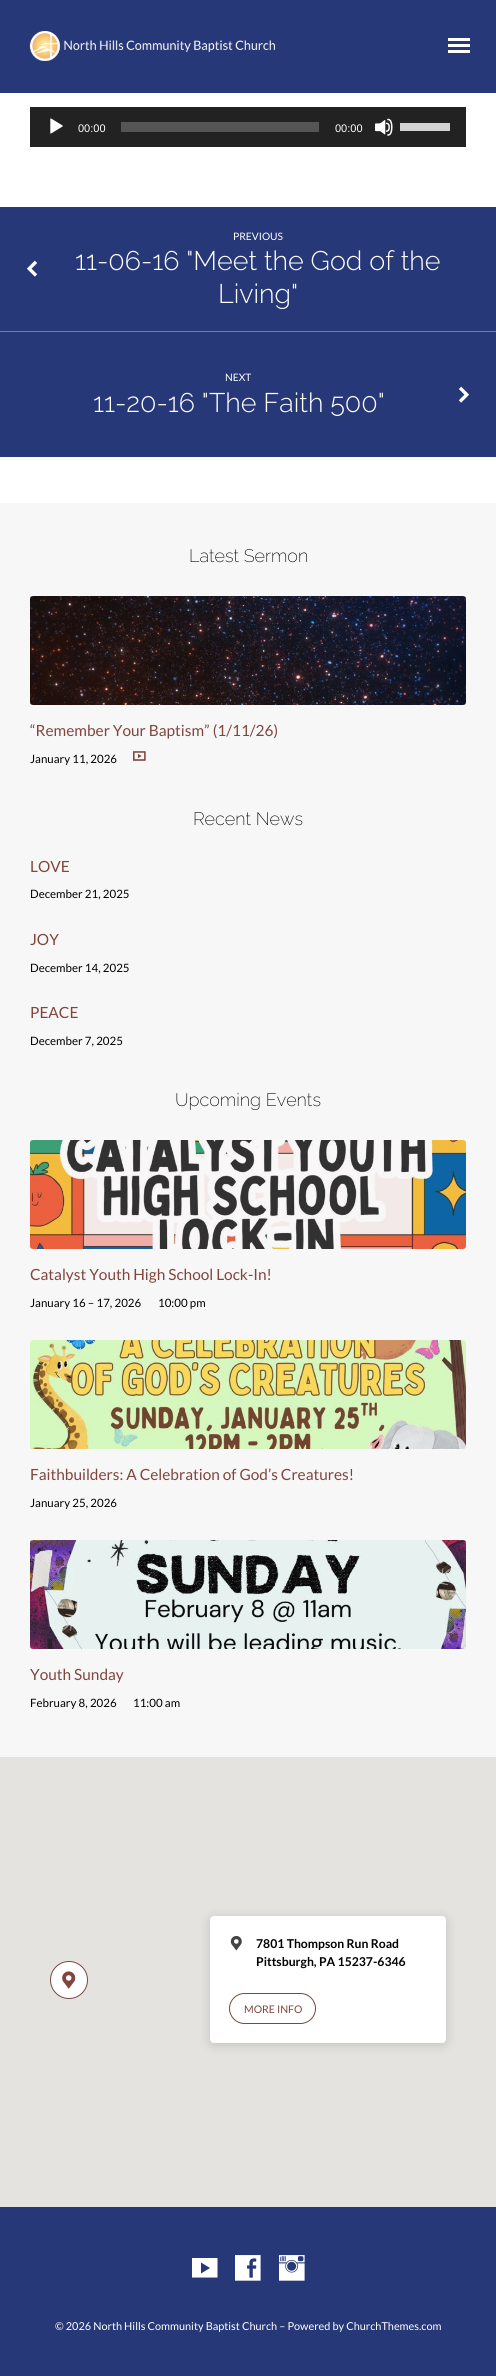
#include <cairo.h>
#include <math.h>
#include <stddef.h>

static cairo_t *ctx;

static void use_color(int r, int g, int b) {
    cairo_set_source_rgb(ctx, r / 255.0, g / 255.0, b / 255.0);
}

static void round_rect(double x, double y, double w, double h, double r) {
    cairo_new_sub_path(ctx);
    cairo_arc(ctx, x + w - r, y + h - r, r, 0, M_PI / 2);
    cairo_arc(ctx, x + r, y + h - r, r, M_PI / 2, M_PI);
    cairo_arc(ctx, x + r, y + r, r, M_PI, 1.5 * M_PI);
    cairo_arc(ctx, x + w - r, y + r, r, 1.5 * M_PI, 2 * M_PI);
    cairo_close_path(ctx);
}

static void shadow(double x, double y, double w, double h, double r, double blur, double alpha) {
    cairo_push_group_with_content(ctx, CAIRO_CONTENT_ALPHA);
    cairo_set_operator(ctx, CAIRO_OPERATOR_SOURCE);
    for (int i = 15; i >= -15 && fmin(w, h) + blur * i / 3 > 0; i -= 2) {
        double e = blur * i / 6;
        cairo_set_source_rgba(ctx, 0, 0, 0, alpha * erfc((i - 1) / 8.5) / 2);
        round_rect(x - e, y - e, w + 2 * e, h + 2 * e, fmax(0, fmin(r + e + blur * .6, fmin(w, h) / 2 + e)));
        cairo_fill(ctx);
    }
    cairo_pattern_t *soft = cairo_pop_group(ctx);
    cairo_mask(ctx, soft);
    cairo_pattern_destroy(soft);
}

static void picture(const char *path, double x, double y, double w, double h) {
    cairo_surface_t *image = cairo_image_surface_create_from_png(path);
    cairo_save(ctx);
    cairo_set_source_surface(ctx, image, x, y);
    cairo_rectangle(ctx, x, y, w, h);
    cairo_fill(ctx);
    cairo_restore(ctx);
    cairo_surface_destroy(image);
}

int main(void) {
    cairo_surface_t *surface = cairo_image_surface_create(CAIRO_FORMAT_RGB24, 496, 2376);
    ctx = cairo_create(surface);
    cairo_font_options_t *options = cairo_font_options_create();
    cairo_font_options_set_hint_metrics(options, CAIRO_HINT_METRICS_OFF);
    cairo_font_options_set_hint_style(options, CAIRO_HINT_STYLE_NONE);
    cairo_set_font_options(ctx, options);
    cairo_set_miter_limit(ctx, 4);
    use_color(255, 255, 255);
    cairo_paint(ctx);
    use_color(39, 56, 120);
    cairo_rectangle(ctx, 0, 0, 496, 93);
    cairo_fill(ctx);
    picture("img1.png", 29, 31, 246, 30);
    use_color(255, 255, 255);
    cairo_rectangle(ctx, 448, 38, 22, 3);
    cairo_fill(ctx);
    cairo_rectangle(ctx, 448, 44, 22, 3);
    cairo_fill(ctx);
    cairo_rectangle(ctx, 448, 50, 22, 3);
    cairo_fill(ctx);
    use_color(34, 34, 34);
    cairo_rectangle(ctx, 30, 107, 436, 40);
    cairo_fill(ctx);
    picture("img2.png", 50, 118, 13, 16);
    cairo_select_font_face(ctx, "Liberation Sans", CAIRO_FONT_SLANT_NORMAL, CAIRO_FONT_WEIGHT_NORMAL);
    cairo_set_font_size(ctx, 11);
    use_color(255, 255, 255);
    cairo_move_to(ctx, 78, 132);
    cairo_show_text(ctx, "00:00");
    use_color(85, 85, 85);
    cairo_rectangle(ctx, 121, 122, 198, 10);
    cairo_fill(ctx);
    use_color(255, 255, 255);
    cairo_move_to(ctx, 335, 132);
    cairo_show_text(ctx, "00:00");
    picture("img3.png", 375, 118, 18, 18);
    use_color(210, 210, 210);
    cairo_rectangle(ctx, 400, 123, 50, 8);
    cairo_fill(ctx);
    use_color(39, 56, 120);
    cairo_rectangle(ctx, 0, 207, 496, 250);
    cairo_fill(ctx);
    use_color(115, 126, 167);
    cairo_rectangle(ctx, 0, 331, 496, 1);
    cairo_fill(ctx);
    picture("img4.png", 26, 260, 12, 17);
    cairo_select_font_face(ctx, "Lato", CAIRO_FONT_SLANT_NORMAL, CAIRO_FONT_WEIGHT_NORMAL);
    cairo_set_font_size(ctx, 10.25);
    use_color(255, 255, 255);
    cairo_move_to(ctx, 233, 240);
    cairo_show_text(ctx, "PREVIOUS");
    cairo_select_font_face(ctx, "Raleway Light", CAIRO_FONT_SLANT_NORMAL, CAIRO_FONT_WEIGHT_NORMAL);
    cairo_set_font_size(ctx, 26.9);
    cairo_move_to(ctx, 75, 270);
    cairo_show_text(ctx, "11-06-16 \"Meet the God of the");
    cairo_move_to(ctx, 218, 303);
    cairo_show_text(ctx, "Living\"");
    cairo_select_font_face(ctx, "Lato", CAIRO_FONT_SLANT_NORMAL, CAIRO_FONT_WEIGHT_NORMAL);
    cairo_set_font_size(ctx, 10.25);
    cairo_move_to(ctx, 225, 381);
    cairo_show_text(ctx, "NEXT");
    cairo_select_font_face(ctx, "Raleway Light", CAIRO_FONT_SLANT_NORMAL, CAIRO_FONT_WEIGHT_NORMAL);
    cairo_set_font_size(ctx, 26.9);
    cairo_move_to(ctx, 93, 412);
    cairo_show_text(ctx, "11-20-16 \"The Faith 500\"");
    picture("img5.png", 458, 386, 12, 17);
    use_color(247, 247, 247);
    cairo_rectangle(ctx, 0, 503, 496, 1254);
    cairo_fill(ctx);
    cairo_select_font_face(ctx, "Raleway ExtraLight", CAIRO_FONT_SLANT_NORMAL, CAIRO_FONT_WEIGHT_NORMAL);
    cairo_set_font_size(ctx, 18);
    use_color(0, 0, 0);
    cairo_move_to(ctx, 189, 562);
    cairo_show_text(ctx, "Latest Sermon");
    picture("img6.png", 30, 596, 436, 109);
    cairo_select_font_face(ctx, "Lato", CAIRO_FONT_SLANT_NORMAL, CAIRO_FONT_WEIGHT_NORMAL);
    cairo_set_font_size(ctx, 15.4);
    use_color(128, 70, 62);
    cairo_move_to(ctx, 30, 736);
    cairo_show_text(ctx, "“Remember Your Baptism” (1/11/26)");
    cairo_set_font_size(ctx, 11.5);
    use_color(0, 0, 0);
    cairo_move_to(ctx, 30, 763);
    cairo_show_text(ctx, "January 11, 2026");
    picture("img7.png", 133, 751, 13, 10);
    cairo_select_font_face(ctx, "Raleway ExtraLight", CAIRO_FONT_SLANT_NORMAL, CAIRO_FONT_WEIGHT_NORMAL);
    cairo_set_font_size(ctx, 18);
    cairo_move_to(ctx, 193, 825);
    cairo_show_text(ctx, "Recent News");
    cairo_select_font_face(ctx, "Lato", CAIRO_FONT_SLANT_NORMAL, CAIRO_FONT_WEIGHT_NORMAL);
    cairo_set_font_size(ctx, 15.4);
    use_color(128, 70, 62);
    cairo_move_to(ctx, 30, 872);
    cairo_show_text(ctx, "LOVE");
    cairo_set_font_size(ctx, 11.5);
    use_color(0, 0, 0);
    cairo_move_to(ctx, 30, 898);
    cairo_show_text(ctx, "December 21, 2025");
    cairo_set_font_size(ctx, 15.4);
    use_color(128, 70, 62);
    cairo_move_to(ctx, 30, 945);
    cairo_show_text(ctx, "JOY");
    cairo_set_font_size(ctx, 11.5);
    use_color(0, 0, 0);
    cairo_move_to(ctx, 30, 972);
    cairo_show_text(ctx, "December 14, 2025");
    cairo_set_font_size(ctx, 15.4);
    use_color(128, 70, 62);
    cairo_move_to(ctx, 30, 1018);
    cairo_show_text(ctx, "PEACE");
    cairo_set_font_size(ctx, 11.5);
    use_color(0, 0, 0);
    cairo_move_to(ctx, 30, 1045);
    cairo_show_text(ctx, "December 7, 2025");
    cairo_select_font_face(ctx, "Raleway ExtraLight", CAIRO_FONT_SLANT_NORMAL, CAIRO_FONT_WEIGHT_NORMAL);
    cairo_set_font_size(ctx, 18);
    cairo_move_to(ctx, 175, 1106);
    cairo_show_text(ctx, "Upcoming Events");
    picture("img8.png", 30, 1140, 436, 109);
    cairo_select_font_face(ctx, "Lato", CAIRO_FONT_SLANT_NORMAL, CAIRO_FONT_WEIGHT_NORMAL);
    cairo_set_font_size(ctx, 15.4);
    use_color(128, 70, 62);
    cairo_move_to(ctx, 30, 1280);
    cairo_show_text(ctx, "Catalyst Youth High School Lock-In!");
    cairo_set_font_size(ctx, 11.5);
    use_color(0, 0, 0);
    cairo_move_to(ctx, 30, 1307);
    cairo_show_text(ctx, "January 16 – 17, 2026");
    cairo_move_to(ctx, 158, 1307);
    cairo_show_text(ctx, "10:00 pm");
    picture("img9.png", 30, 1340, 436, 109);
    cairo_set_font_size(ctx, 15.4);
    use_color(128, 70, 62);
    cairo_move_to(ctx, 30, 1480);
    cairo_show_text(ctx, "Faithbuilders: A Celebration of God’s Creatures!");
    cairo_set_font_size(ctx, 11.5);
    use_color(0, 0, 0);
    cairo_move_to(ctx, 30, 1507);
    cairo_show_text(ctx, "January 25, 2026");
    picture("img10.png", 30, 1540, 436, 109);
    cairo_set_font_size(ctx, 15.4);
    use_color(128, 70, 62);
    cairo_move_to(ctx, 30, 1680);
    cairo_show_text(ctx, "Youth Sunday");
    cairo_set_font_size(ctx, 11.5);
    use_color(0, 0, 0);
    cairo_move_to(ctx, 30, 1707);
    cairo_show_text(ctx, "February 8, 2026");
    cairo_move_to(ctx, 133, 1707);
    cairo_show_text(ctx, "11:00 am");
    use_color(229, 227, 223);
    cairo_rectangle(ctx, 0, 1757, 496, 450);
    cairo_fill(ctx);
    use_color(255, 255, 255);
    cairo_arc(ctx, 69, 1980, 18.5, 0, 2 * M_PI);
    cairo_fill_preserve(ctx);
    use_color(128, 70, 62);
    cairo_set_line_width(ctx, 1);
    cairo_stroke(ctx);
    picture("img11.png", 62, 1971, 14, 18);
    use_color(0, 0, 0);
    shadow(210, 1918, 236, 127, 4, 6, 0.15);
    use_color(255, 255, 255);
    round_rect(210, 1916, 236, 127, 4);
    cairo_fill(ctx);
    picture("img12.png", 230, 1935, 12, 16);
    cairo_select_font_face(ctx, "Lato", CAIRO_FONT_SLANT_NORMAL, CAIRO_FONT_WEIGHT_BOLD);
    cairo_set_font_size(ctx, 12.2);
    use_color(0, 0, 0);
    cairo_move_to(ctx, 256, 1948);
    cairo_show_text(ctx, "7801 Thompson Run Road");
    cairo_move_to(ctx, 256, 1966);
    cairo_show_text(ctx, "Pittsburgh, PA 15237-6346");
    round_rect(229.5, 1993.5, 86, 30, 15);
    use_color(128, 70, 62);
    cairo_stroke(ctx);
    cairo_select_font_face(ctx, "Lato", CAIRO_FONT_SLANT_NORMAL, CAIRO_FONT_WEIGHT_NORMAL);
    cairo_set_font_size(ctx, 10.5);
    cairo_move_to(ctx, 244, 2013);
    cairo_show_text(ctx, "MORE INFO");
    use_color(39, 56, 120);
    cairo_rectangle(ctx, 0, 2207, 496, 169);
    cairo_fill(ctx);
    use_color(255, 255, 255);
    cairo_new_path(ctx);
    cairo_move_to(ctx, 217.5, 2277.5);
    cairo_line_to(ctx, 192, 2277.5);
    cairo_line_to(ctx, 192, 2258);
    cairo_line_to(ctx, 217.5, 2258);
    cairo_close_path(ctx);
    cairo_move_to(ctx, 201, 2273.5);
    cairo_line_to(ctx, 210, 2268);
    cairo_line_to(ctx, 201, 2262.5);
    cairo_close_path(ctx);
    cairo_fill(ctx);
    picture("img13.png", 235, 2255, 26, 26);
    picture("img14.png", 279, 2255, 26, 26);
    cairo_set_font_size(ctx, 10.9);
    cairo_move_to(ctx, 55, 2330);
    cairo_show_text(ctx, "© 2026 North Hills Community Baptist Church – Powered by ChurchThemes.com");
    cairo_surface_write_to_png(surface, "result.png");
    cairo_font_options_destroy(options);
    cairo_destroy(ctx);
    cairo_surface_destroy(surface);
    return 0;
}
